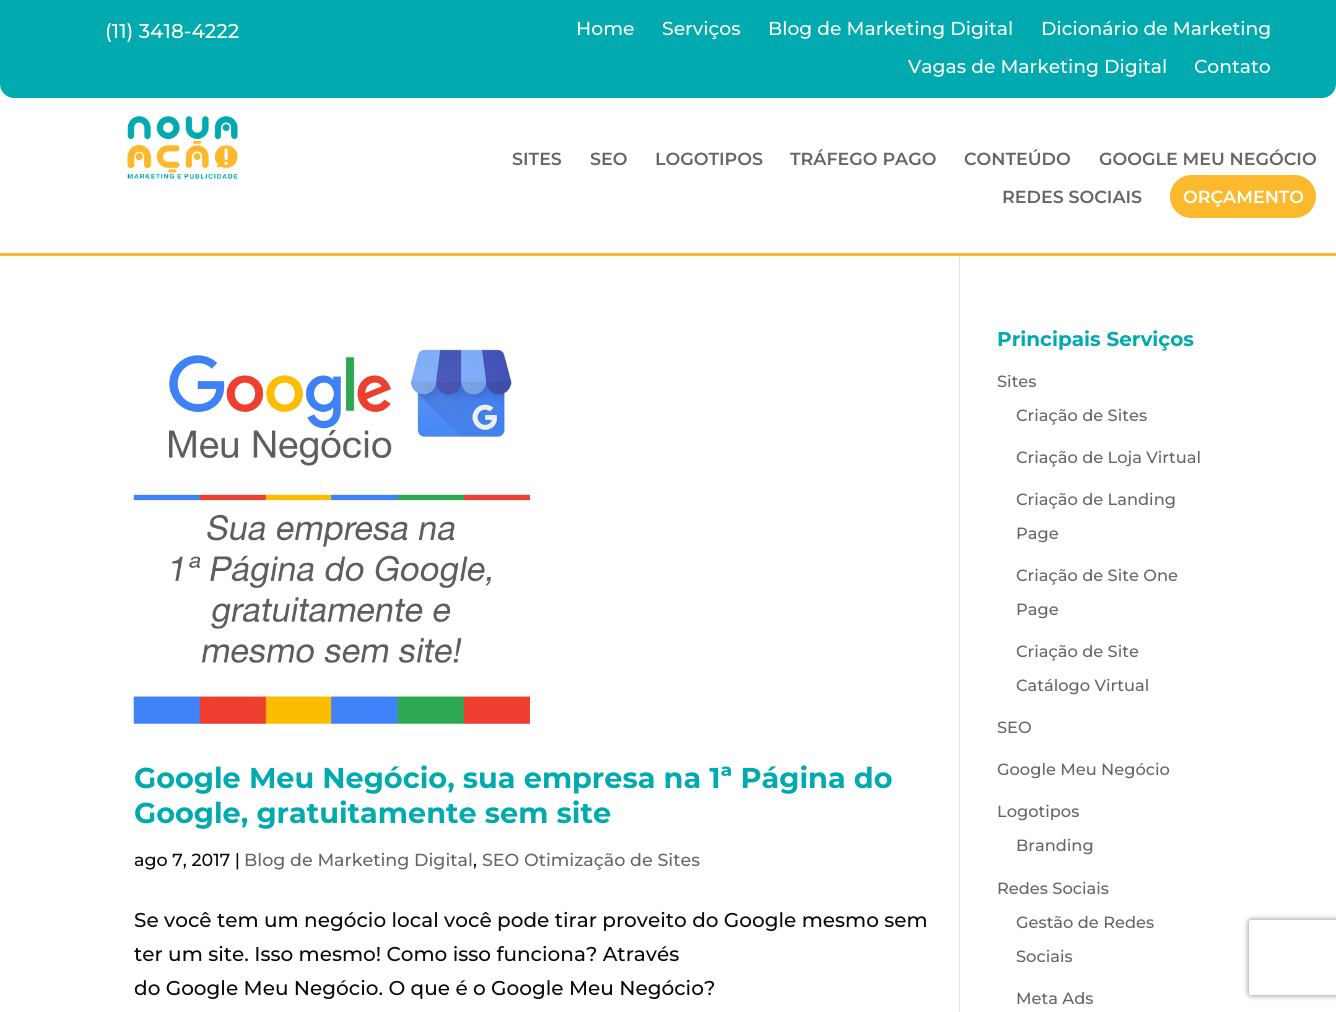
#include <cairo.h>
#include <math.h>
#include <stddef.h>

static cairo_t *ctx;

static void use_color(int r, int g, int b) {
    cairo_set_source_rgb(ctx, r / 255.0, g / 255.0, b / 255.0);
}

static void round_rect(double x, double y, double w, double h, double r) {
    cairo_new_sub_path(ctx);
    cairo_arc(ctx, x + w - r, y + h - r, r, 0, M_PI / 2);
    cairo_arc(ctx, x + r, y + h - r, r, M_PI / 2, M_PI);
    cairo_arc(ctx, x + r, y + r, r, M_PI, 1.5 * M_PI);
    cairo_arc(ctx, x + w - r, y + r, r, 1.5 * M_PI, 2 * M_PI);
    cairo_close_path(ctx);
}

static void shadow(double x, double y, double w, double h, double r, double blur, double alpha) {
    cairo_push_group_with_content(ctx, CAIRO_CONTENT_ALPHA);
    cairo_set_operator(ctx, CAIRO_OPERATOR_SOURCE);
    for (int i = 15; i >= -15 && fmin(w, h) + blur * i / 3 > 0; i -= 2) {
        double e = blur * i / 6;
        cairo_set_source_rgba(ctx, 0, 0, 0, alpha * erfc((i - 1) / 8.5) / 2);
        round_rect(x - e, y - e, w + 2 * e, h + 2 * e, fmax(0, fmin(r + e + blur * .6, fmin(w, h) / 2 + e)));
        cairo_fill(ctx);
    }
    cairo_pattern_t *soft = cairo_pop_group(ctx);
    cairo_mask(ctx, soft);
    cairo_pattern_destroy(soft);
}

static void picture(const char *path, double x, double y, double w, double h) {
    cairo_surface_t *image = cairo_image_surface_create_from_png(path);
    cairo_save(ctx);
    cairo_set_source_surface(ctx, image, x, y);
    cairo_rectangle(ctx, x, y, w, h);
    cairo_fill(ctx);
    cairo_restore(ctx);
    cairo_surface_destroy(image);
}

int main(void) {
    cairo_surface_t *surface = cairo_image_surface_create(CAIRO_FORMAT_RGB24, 1336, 1012);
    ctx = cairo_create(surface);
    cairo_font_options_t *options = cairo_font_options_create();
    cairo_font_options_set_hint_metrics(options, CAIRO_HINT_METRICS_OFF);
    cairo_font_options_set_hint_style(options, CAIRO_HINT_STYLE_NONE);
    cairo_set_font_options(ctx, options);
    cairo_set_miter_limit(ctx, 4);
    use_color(255, 255, 255);
    cairo_paint(ctx);
    use_color(1, 170, 175);
    cairo_new_path(ctx);
    cairo_move_to(ctx, 0, 0);
    cairo_line_to(ctx, 1336, 0);
    cairo_line_to(ctx, 1336, 84);
    cairo_curve_to(ctx, 1336, 91.5, 1329.5, 98, 1322, 98);
    cairo_line_to(ctx, 14, 98);
    cairo_curve_to(ctx, 6.5, 98, 0, 91.5, 0, 84);
    cairo_close_path(ctx);
    cairo_fill(ctx);
    cairo_select_font_face(ctx, "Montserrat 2 Thin", CAIRO_FONT_SLANT_NORMAL, CAIRO_FONT_WEIGHT_NORMAL);
    cairo_set_font_size(ctx, 20);
    use_color(255, 255, 255);
    cairo_move_to(ctx, 105, 38);
    cairo_show_text(ctx, "(11) 3418-4222");
    cairo_set_font_size(ctx, 18.75);
    cairo_move_to(ctx, 576, 35);
    cairo_show_text(ctx, "Home");
    cairo_move_to(ctx, 662, 35);
    cairo_show_text(ctx, "Serviços");
    cairo_move_to(ctx, 768, 35);
    cairo_show_text(ctx, "Blog de Marketing Digital");
    cairo_move_to(ctx, 1041, 35);
    cairo_show_text(ctx, "Dicionário de Marketing");
    cairo_move_to(ctx, 908, 73);
    cairo_show_text(ctx, "Vagas de Marketing Digital");
    cairo_move_to(ctx, 1194, 73);
    cairo_show_text(ctx, "Contato");
    use_color(226, 226, 226);
    cairo_rectangle(ctx, 959, 255, 1, 757);
    cairo_fill(ctx);
    use_color(253, 185, 46);
    cairo_rectangle(ctx, 0, 253, 1336, 3);
    cairo_fill(ctx);
    picture("img1.png", 127, 116, 111, 63);
    cairo_select_font_face(ctx, "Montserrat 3 Thin", CAIRO_FONT_SLANT_NORMAL, CAIRO_FONT_WEIGHT_NORMAL);
    cairo_set_font_size(ctx, 17.5);
    use_color(102, 102, 102);
    cairo_move_to(ctx, 512, 165);
    cairo_show_text(ctx, "SITES");
    cairo_move_to(ctx, 590, 165);
    cairo_show_text(ctx, "SEO");
    cairo_move_to(ctx, 655, 165);
    cairo_show_text(ctx, "LOGOTIPOS");
    cairo_move_to(ctx, 790, 165);
    cairo_show_text(ctx, "TRÁFEGO PAGO");
    cairo_move_to(ctx, 964, 165);
    cairo_show_text(ctx, "CONTEÚDO");
    cairo_move_to(ctx, 1099, 165);
    cairo_show_text(ctx, "GOOGLE MEU NEGÓCIO");
    cairo_move_to(ctx, 1002, 203);
    cairo_show_text(ctx, "REDES SOCIAIS");
    use_color(253, 185, 46);
    round_rect(1170, 175, 146, 43, 21.5);
    cairo_fill(ctx);
    use_color(255, 255, 255);
    cairo_move_to(ctx, 1183, 203);
    cairo_show_text(ctx, "ORÇAMENTO");
    picture("img2.png", 133, 349, 397, 375);
    cairo_select_font_face(ctx, "Montserrat Thin", CAIRO_FONT_SLANT_NORMAL, CAIRO_FONT_WEIGHT_NORMAL);
    cairo_set_font_size(ctx, 28.75);
    use_color(1, 170, 175);
    cairo_move_to(ctx, 134, 788);
    cairo_show_text(ctx, "Google Meu Negócio, sua empresa na 1ª Página do");
    cairo_move_to(ctx, 134, 823);
    cairo_show_text(ctx, "Google, gratuitamente sem site");
    cairo_select_font_face(ctx, "Montserrat 2 Thin", CAIRO_FONT_SLANT_NORMAL, CAIRO_FONT_WEIGHT_NORMAL);
    cairo_set_font_size(ctx, 17.5);
    use_color(10, 10, 10);
    cairo_move_to(ctx, 134, 866);
    cairo_show_text(ctx, "ago 7, 2017 |");
    use_color(102, 102, 102);
    cairo_move_to(ctx, 244, 866);
    cairo_show_text(ctx, "Blog de Marketing Digital");
    use_color(10, 10, 10);
    cairo_move_to(ctx, 473, 866);
    cairo_show_text(ctx, ",");
    use_color(102, 102, 102);
    cairo_move_to(ctx, 482, 866);
    cairo_show_text(ctx, "SEO Otimização de Sites");
    cairo_set_font_size(ctx, 20);
    use_color(10, 10, 10);
    cairo_move_to(ctx, 134, 927);
    cairo_show_text(ctx, "Se você tem um negócio local você pode tirar proveito do Google mesmo sem");
    cairo_move_to(ctx, 134, 961);
    cairo_show_text(ctx, "ter um site. Isso mesmo! Como isso funciona? Através");
    cairo_move_to(ctx, 134, 995);
    cairo_show_text(ctx, "do Google Meu Negócio. O que é o Google Meu Negócio?");
    cairo_select_font_face(ctx, "Montserrat Thin", CAIRO_FONT_SLANT_NORMAL, CAIRO_FONT_WEIGHT_NORMAL);
    use_color(1, 170, 175);
    cairo_move_to(ctx, 997, 346);
    cairo_show_text(ctx, "Principais Serviços");
    cairo_select_font_face(ctx, "Montserrat 2 Thin", CAIRO_FONT_SLANT_NORMAL, CAIRO_FONT_WEIGHT_NORMAL);
    cairo_set_font_size(ctx, 16.25);
    use_color(102, 102, 102);
    cairo_move_to(ctx, 997, 387);
    cairo_show_text(ctx, "Sites");
    cairo_move_to(ctx, 1016, 421);
    cairo_show_text(ctx, "Criação de Sites");
    cairo_move_to(ctx, 1016, 463);
    cairo_show_text(ctx, "Criação de Loja Virtual");
    cairo_move_to(ctx, 1016, 505);
    cairo_show_text(ctx, "Criação de Landing");
    cairo_move_to(ctx, 1016, 539);
    cairo_show_text(ctx, "Page");
    cairo_move_to(ctx, 1016, 581);
    cairo_show_text(ctx, "Criação de Site One");
    cairo_move_to(ctx, 1016, 615);
    cairo_show_text(ctx, "Page");
    cairo_move_to(ctx, 1016, 657);
    cairo_show_text(ctx, "Criação de Site");
    cairo_move_to(ctx, 1016, 691);
    cairo_show_text(ctx, "Catálogo Virtual");
    cairo_move_to(ctx, 997, 733);
    cairo_show_text(ctx, "SEO");
    cairo_move_to(ctx, 997, 775);
    cairo_show_text(ctx, "Google Meu Negócio");
    cairo_move_to(ctx, 997, 817);
    cairo_show_text(ctx, "Logotipos");
    cairo_move_to(ctx, 1016, 851);
    cairo_show_text(ctx, "Branding");
    cairo_move_to(ctx, 997, 894);
    cairo_show_text(ctx, "Redes Sociais");
    cairo_move_to(ctx, 1016, 928);
    cairo_show_text(ctx, "Gestão de Redes");
    cairo_move_to(ctx, 1016, 962);
    cairo_show_text(ctx, "Sociais");
    cairo_move_to(ctx, 1016, 1004);
    cairo_show_text(ctx, "Meta Ads");
    cairo_save(ctx);
    cairo_set_fill_rule(ctx, CAIRO_FILL_RULE_EVEN_ODD);
    cairo_new_path(ctx);
    cairo_move_to(ctx, 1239, 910);
    cairo_line_to(ctx, 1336, 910);
    cairo_line_to(ctx, 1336, 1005);
    cairo_line_to(ctx, 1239, 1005);
    cairo_close_path(ctx);
    cairo_move_to(ctx, 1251.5, 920);
    cairo_line_to(ctx, 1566.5, 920);
    cairo_curve_to(ctx, 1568, 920, 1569, 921, 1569, 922.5);
    cairo_line_to(ctx, 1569, 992.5);
    cairo_curve_to(ctx, 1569, 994, 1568, 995, 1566.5, 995);
    cairo_line_to(ctx, 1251.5, 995);
    cairo_curve_to(ctx, 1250, 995, 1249, 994, 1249, 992.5);
    cairo_line_to(ctx, 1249, 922.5);
    cairo_curve_to(ctx, 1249, 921, 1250, 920, 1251.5, 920);
    cairo_close_path(ctx);
    cairo_clip(ctx);
    use_color(128, 128, 128);
    shadow(1249, 920, 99, 75, 2.5, 3, 1);
    cairo_restore(ctx);
    cairo_surface_write_to_png(surface, "result.png");
    cairo_font_options_destroy(options);
    cairo_destroy(ctx);
    cairo_surface_destroy(surface);
    return 0;
}
